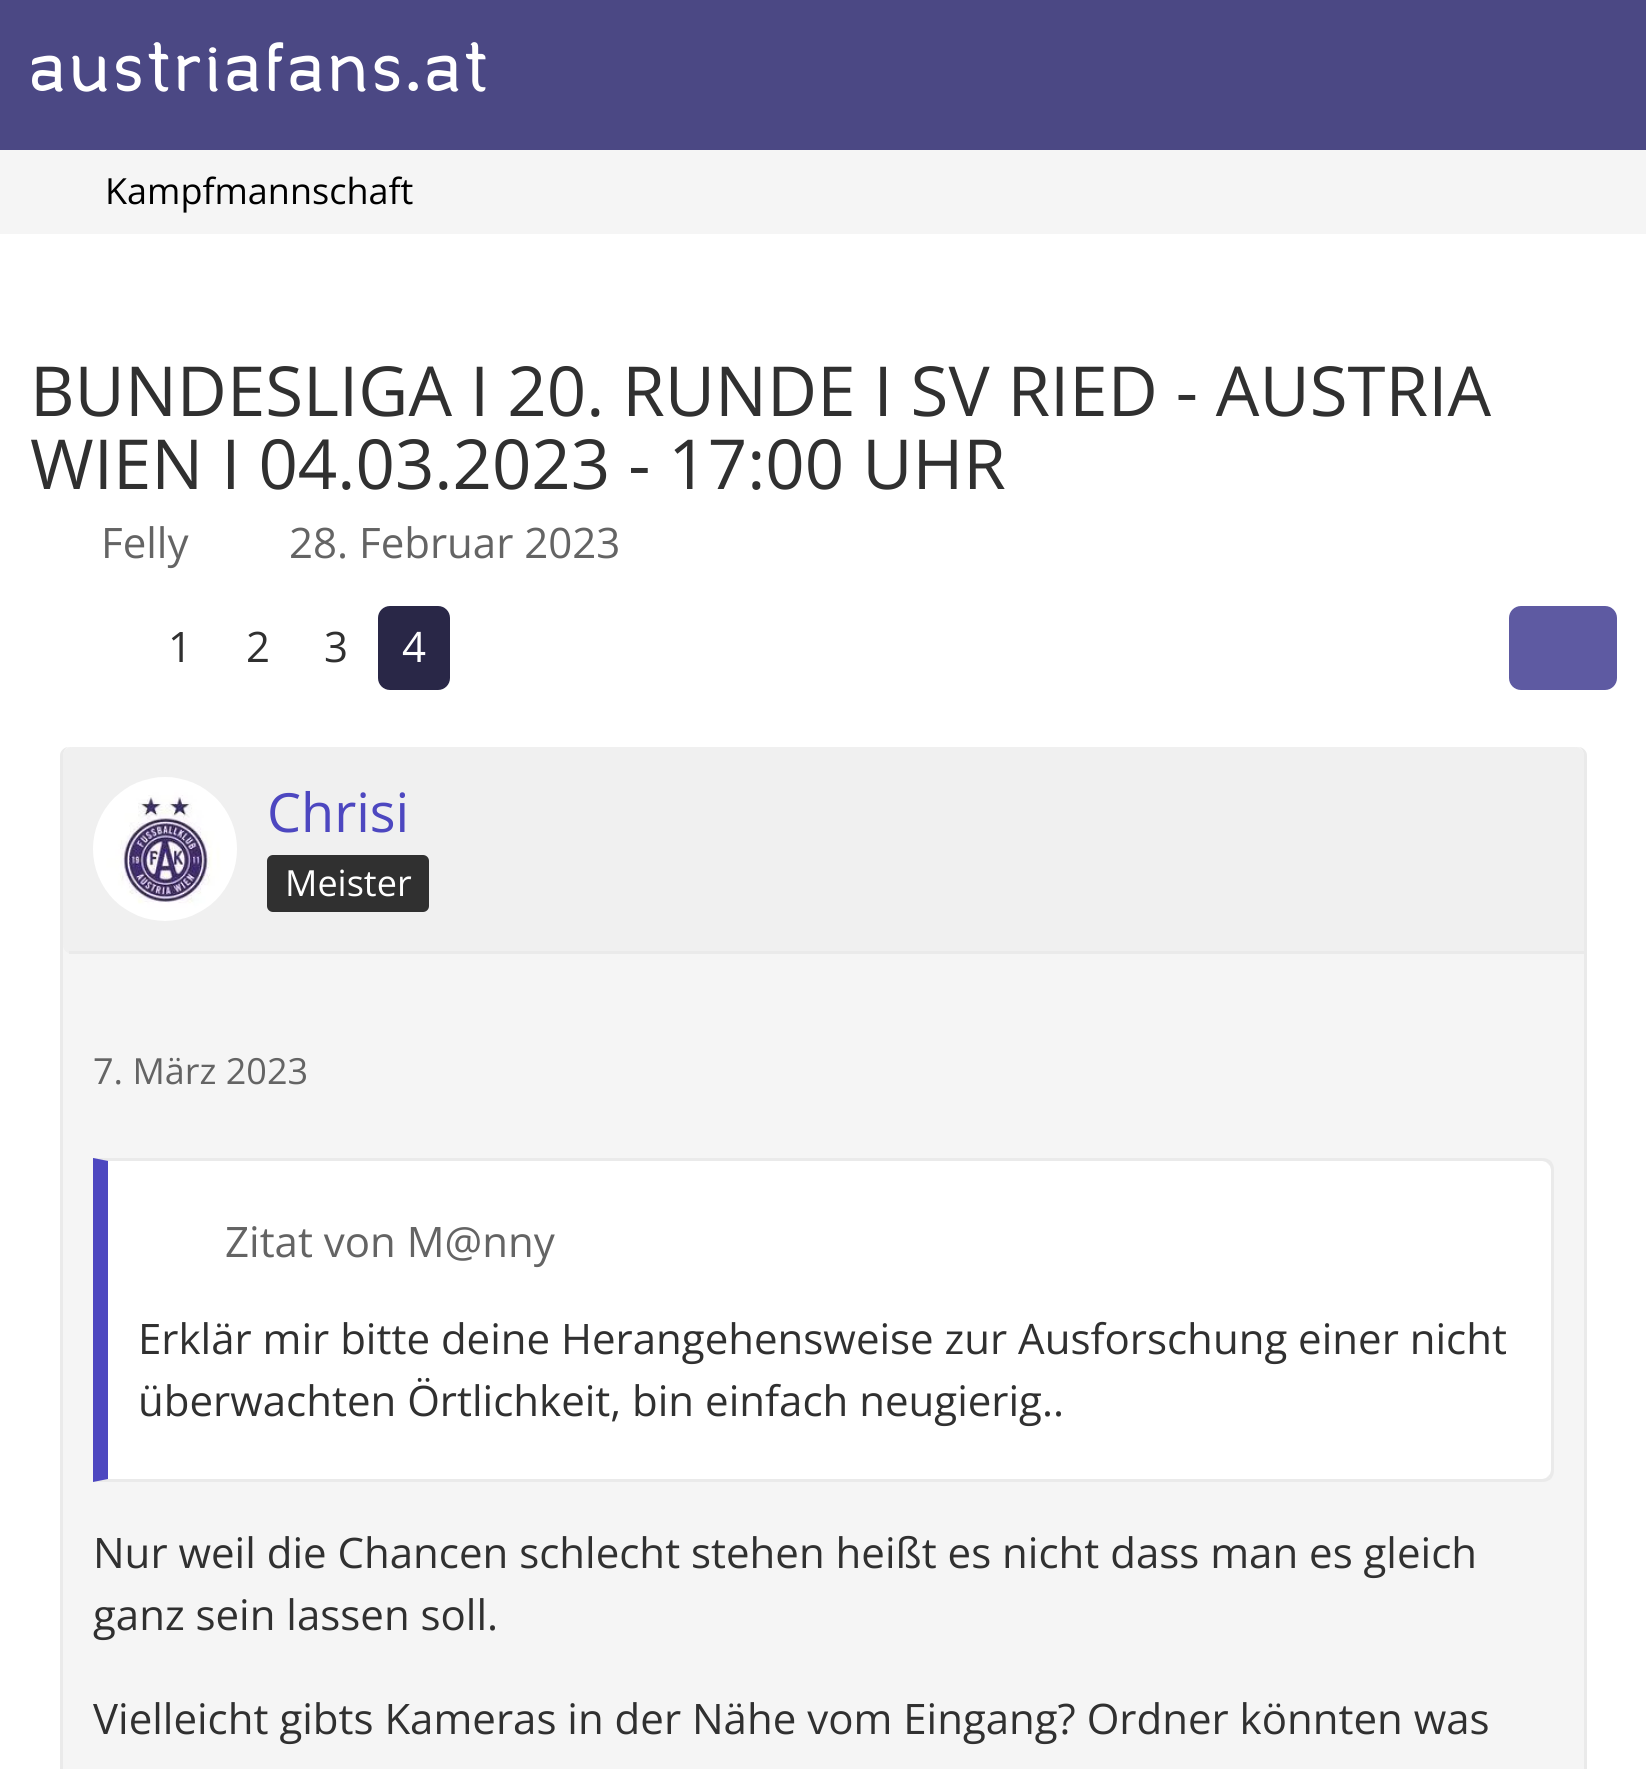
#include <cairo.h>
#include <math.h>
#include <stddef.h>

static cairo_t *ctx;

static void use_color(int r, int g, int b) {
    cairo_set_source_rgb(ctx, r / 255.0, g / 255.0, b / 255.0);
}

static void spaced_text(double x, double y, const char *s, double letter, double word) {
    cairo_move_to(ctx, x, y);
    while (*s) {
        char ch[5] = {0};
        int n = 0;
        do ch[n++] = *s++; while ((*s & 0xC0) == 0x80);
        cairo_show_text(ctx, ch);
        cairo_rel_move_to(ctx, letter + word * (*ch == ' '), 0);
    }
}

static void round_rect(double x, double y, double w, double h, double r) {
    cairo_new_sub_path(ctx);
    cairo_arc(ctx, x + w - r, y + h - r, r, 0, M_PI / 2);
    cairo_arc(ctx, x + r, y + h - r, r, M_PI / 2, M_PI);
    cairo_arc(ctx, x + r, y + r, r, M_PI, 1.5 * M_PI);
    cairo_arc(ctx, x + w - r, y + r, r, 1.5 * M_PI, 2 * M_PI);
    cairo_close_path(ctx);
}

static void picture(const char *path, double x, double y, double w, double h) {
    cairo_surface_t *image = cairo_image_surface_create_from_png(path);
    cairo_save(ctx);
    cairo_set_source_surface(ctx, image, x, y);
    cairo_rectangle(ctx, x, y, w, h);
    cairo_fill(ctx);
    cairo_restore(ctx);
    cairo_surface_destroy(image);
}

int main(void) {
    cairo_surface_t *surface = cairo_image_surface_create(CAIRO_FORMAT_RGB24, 1646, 1769);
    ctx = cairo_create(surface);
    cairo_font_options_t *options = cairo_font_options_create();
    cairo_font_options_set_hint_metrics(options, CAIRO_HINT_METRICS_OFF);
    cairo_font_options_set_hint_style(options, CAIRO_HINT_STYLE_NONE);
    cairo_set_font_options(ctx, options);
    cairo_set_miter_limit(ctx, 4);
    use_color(245, 245, 245);
    cairo_paint(ctx);
    use_color(75, 72, 132);
    cairo_rectangle(ctx, 0, 0, 1646, 150);
    cairo_fill(ctx);
    cairo_select_font_face(ctx, "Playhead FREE", CAIRO_FONT_SLANT_NORMAL, CAIRO_FONT_WEIGHT_NORMAL);
    cairo_set_font_size(ctx, 63);
    use_color(255, 255, 255);
    spaced_text(30, 91, "austriafans.at", 6.25, 0);
    cairo_select_font_face(ctx, "Open Sans", CAIRO_FONT_SLANT_NORMAL, CAIRO_FONT_WEIGHT_NORMAL);
    cairo_set_font_size(ctx, 36);
    use_color(0, 0, 0);
    cairo_move_to(ctx, 105, 204);
    cairo_show_text(ctx, "Kampfmannschaft");
    use_color(255, 255, 255);
    cairo_rectangle(ctx, 0, 234, 1646, 1535);
    cairo_fill(ctx);
    cairo_set_font_size(ctx, 69);
    use_color(48, 48, 48);
    cairo_move_to(ctx, 30, 416);
    cairo_show_text(ctx, "BUNDESLIGA I 20. RUNDE I SV RIED - AUSTRIA");
    cairo_move_to(ctx, 30, 489);
    cairo_show_text(ctx, "WIEN I 04.03.2023 - 17:00 UHR");
    cairo_set_font_size(ctx, 42);
    use_color(100, 100, 100);
    cairo_move_to(ctx, 101, 558);
    cairo_show_text(ctx, "Felly");
    cairo_move_to(ctx, 289, 558);
    cairo_show_text(ctx, "28. Februar 2023");
    use_color(48, 48, 48);
    cairo_move_to(ctx, 168, 662);
    cairo_show_text(ctx, "1");
    cairo_move_to(ctx, 246, 662);
    cairo_show_text(ctx, "2");
    cairo_move_to(ctx, 324, 662);
    cairo_show_text(ctx, "3");
    use_color(41, 39, 71);
    round_rect(378, 606, 72, 84, 12);
    cairo_fill(ctx);
    use_color(255, 255, 255);
    cairo_move_to(ctx, 402, 662);
    cairo_show_text(ctx, "4");
    use_color(94, 90, 162);
    round_rect(1509, 606, 108, 84, 12);
    cairo_fill(ctx);
    use_color(245, 245, 245);
    round_rect(60, 747, 1527, 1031, 9);
    cairo_fill(ctx);
    use_color(234, 234, 234);
    cairo_set_fill_rule(ctx, CAIRO_FILL_RULE_EVEN_ODD);
    cairo_new_path(ctx);
    cairo_move_to(ctx, 69, 747);
    cairo_line_to(ctx, 1578, 747);
    cairo_curve_to(ctx, 1583, 747, 1587, 751, 1587, 756);
    cairo_line_to(ctx, 1587, 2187);
    cairo_curve_to(ctx, 1587, 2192, 1583, 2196, 1578, 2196);
    cairo_line_to(ctx, 69, 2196);
    cairo_curve_to(ctx, 64, 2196, 60, 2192, 60, 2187);
    cairo_line_to(ctx, 60, 756);
    cairo_curve_to(ctx, 60, 751, 64, 747, 69, 747);
    cairo_close_path(ctx);
    cairo_move_to(ctx, 69, 747);
    cairo_line_to(ctx, 1578, 747);
    cairo_curve_to(ctx, 1581, 747, 1584, 751, 1584, 756);
    cairo_line_to(ctx, 1584, 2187);
    cairo_curve_to(ctx, 1584, 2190, 1581, 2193, 1578, 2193);
    cairo_line_to(ctx, 69, 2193);
    cairo_curve_to(ctx, 66, 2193, 63, 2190, 63, 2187);
    cairo_line_to(ctx, 63, 756);
    cairo_curve_to(ctx, 63, 751, 66, 747, 69, 747);
    cairo_close_path(ctx);
    cairo_fill(ctx);
    use_color(240, 240, 240);
    cairo_new_path(ctx);
    cairo_move_to(ctx, 72, 747);
    cairo_line_to(ctx, 1575, 747);
    cairo_curve_to(ctx, 1580, 747, 1584, 751, 1584, 756);
    cairo_line_to(ctx, 1584, 954);
    cairo_line_to(ctx, 72, 954);
    cairo_curve_to(ctx, 67, 954, 63, 950, 63, 945);
    cairo_line_to(ctx, 63, 756);
    cairo_curve_to(ctx, 63, 751, 67, 747, 72, 747);
    cairo_close_path(ctx);
    cairo_fill(ctx);
    use_color(234, 234, 234);
    cairo_rectangle(ctx, 69, 951, 1515, 3);
    cairo_fill(ctx);
    picture("img1.png", 93, 777, 144, 144);
    cairo_set_font_size(ctx, 54);
    use_color(77, 71, 192);
    cairo_move_to(ctx, 267, 832);
    cairo_show_text(ctx, "Chrisi");
    use_color(48, 48, 48);
    round_rect(267, 855, 162, 57, 6);
    cairo_fill(ctx);
    cairo_set_font_size(ctx, 36);
    use_color(255, 255, 255);
    cairo_move_to(ctx, 285, 896);
    cairo_show_text(ctx, "Meister");
    use_color(100, 100, 100);
    cairo_move_to(ctx, 93, 1084);
    cairo_show_text(ctx, "7. März 2023");
    use_color(255, 255, 255);
    cairo_new_path(ctx);
    cairo_move_to(ctx, 108, 1161);
    cairo_line_to(ctx, 1542, 1161);
    cairo_curve_to(ctx, 1547, 1161, 1551, 1165, 1551, 1170);
    cairo_line_to(ctx, 1551, 1470);
    cairo_curve_to(ctx, 1551, 1475, 1547, 1479, 1542, 1479);
    cairo_line_to(ctx, 108, 1479);
    cairo_close_path(ctx);
    cairo_fill(ctx);
    use_color(234, 234, 234);
    cairo_set_fill_rule(ctx, CAIRO_FILL_RULE_WINDING);
    cairo_new_path(ctx);
    cairo_move_to(ctx, 93, 1158);
    cairo_line_to(ctx, 108, 1161);
    cairo_line_to(ctx, 1542, 1161);
    cairo_curve_to(ctx, 1544, 1161, 1547, 1162, 1548, 1164);
    cairo_line_to(ctx, 1551, 1161);
    cairo_curve_to(ctx, 1548, 1159, 1546, 1158, 1542, 1158);
    cairo_close_path(ctx);
    cairo_fill(ctx);
    cairo_new_path(ctx);
    cairo_move_to(ctx, 1554, 1470);
    cairo_line_to(ctx, 1554, 1170);
    cairo_curve_to(ctx, 1554, 1166, 1553, 1164, 1551, 1161);
    cairo_line_to(ctx, 1548, 1164);
    cairo_curve_to(ctx, 1550, 1165, 1551, 1168, 1551, 1170);
    cairo_line_to(ctx, 1551, 1470);
    cairo_curve_to(ctx, 1551, 1472, 1550, 1475, 1548, 1476);
    cairo_line_to(ctx, 1551, 1479);
    cairo_curve_to(ctx, 1553, 1476, 1554, 1474, 1554, 1470);
    cairo_close_path(ctx);
    cairo_fill(ctx);
    cairo_new_path(ctx);
    cairo_move_to(ctx, 1542, 1482);
    cairo_curve_to(ctx, 1546, 1482, 1548, 1481, 1551, 1479);
    cairo_line_to(ctx, 1548, 1476);
    cairo_curve_to(ctx, 1547, 1478, 1544, 1479, 1542, 1479);
    cairo_line_to(ctx, 108, 1479);
    cairo_line_to(ctx, 93, 1482);
    cairo_close_path(ctx);
    cairo_fill(ctx);
    use_color(77, 71, 192);
    cairo_new_path(ctx);
    cairo_move_to(ctx, 108, 1161);
    cairo_line_to(ctx, 93, 1158);
    cairo_line_to(ctx, 93, 1482);
    cairo_line_to(ctx, 108, 1479);
    cairo_close_path(ctx);
    cairo_fill(ctx);
    cairo_set_font_size(ctx, 42);
    use_color(100, 100, 100);
    cairo_move_to(ctx, 225, 1257);
    cairo_show_text(ctx, "Zitat von M@nny");
    use_color(48, 48, 48);
    cairo_move_to(ctx, 138, 1354);
    cairo_show_text(ctx, "Erklär mir bitte deine Herangehensweise zur Ausforschung einer nicht");
    cairo_move_to(ctx, 138, 1416);
    cairo_show_text(ctx, "überwachten Örtlichkeit, bin einfach neugierig..");
    cairo_move_to(ctx, 93, 1568);
    cairo_show_text(ctx, "Nur weil die Chancen schlecht stehen heißt es nicht dass man es gleich");
    cairo_move_to(ctx, 93, 1630);
    cairo_show_text(ctx, "ganz sein lassen soll.");
    cairo_move_to(ctx, 93, 1734);
    cairo_show_text(ctx, "Vielleicht gibts Kameras in der Nähe vom Eingang? Ordner könnten was");
    cairo_surface_write_to_png(surface, "result.png");
    cairo_font_options_destroy(options);
    cairo_destroy(ctx);
    cairo_surface_destroy(surface);
    return 0;
}
